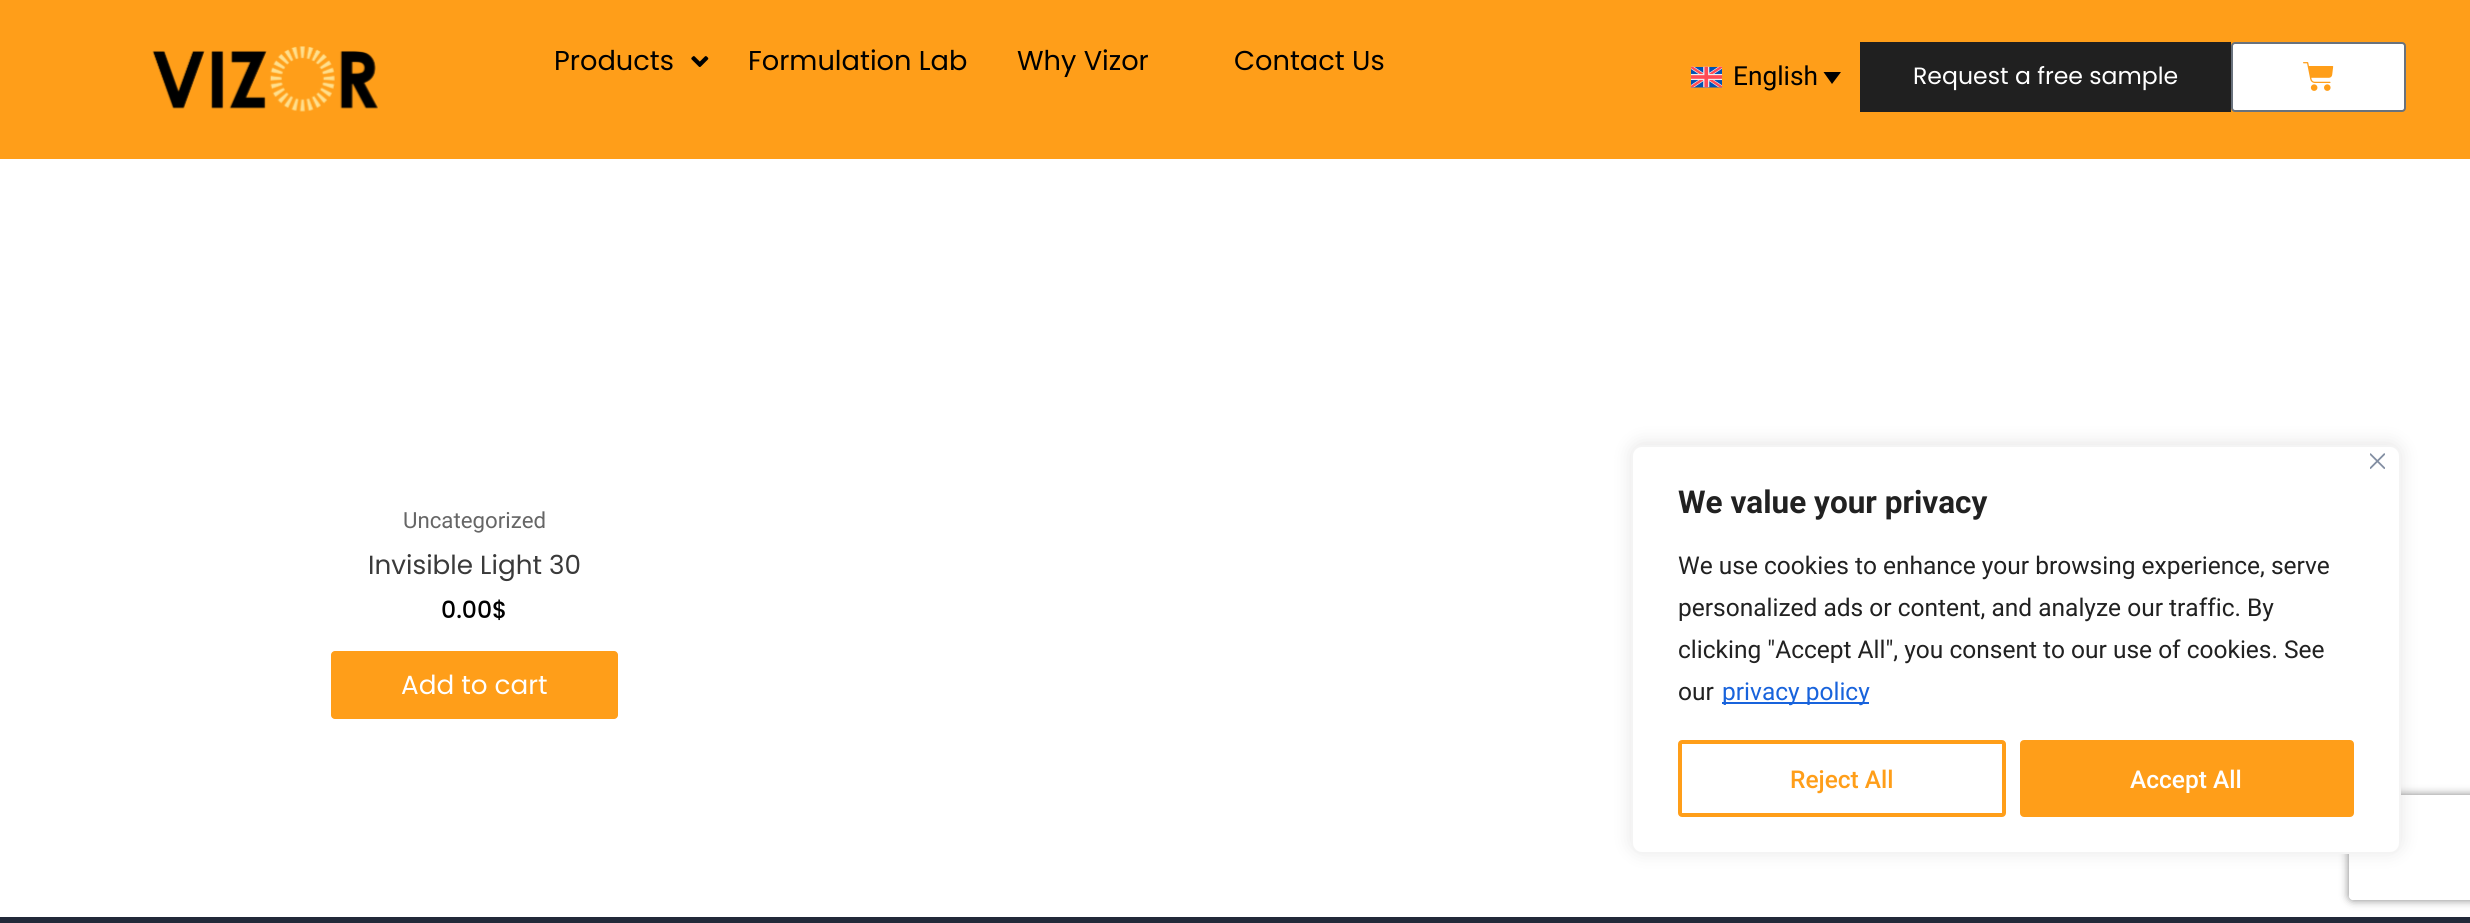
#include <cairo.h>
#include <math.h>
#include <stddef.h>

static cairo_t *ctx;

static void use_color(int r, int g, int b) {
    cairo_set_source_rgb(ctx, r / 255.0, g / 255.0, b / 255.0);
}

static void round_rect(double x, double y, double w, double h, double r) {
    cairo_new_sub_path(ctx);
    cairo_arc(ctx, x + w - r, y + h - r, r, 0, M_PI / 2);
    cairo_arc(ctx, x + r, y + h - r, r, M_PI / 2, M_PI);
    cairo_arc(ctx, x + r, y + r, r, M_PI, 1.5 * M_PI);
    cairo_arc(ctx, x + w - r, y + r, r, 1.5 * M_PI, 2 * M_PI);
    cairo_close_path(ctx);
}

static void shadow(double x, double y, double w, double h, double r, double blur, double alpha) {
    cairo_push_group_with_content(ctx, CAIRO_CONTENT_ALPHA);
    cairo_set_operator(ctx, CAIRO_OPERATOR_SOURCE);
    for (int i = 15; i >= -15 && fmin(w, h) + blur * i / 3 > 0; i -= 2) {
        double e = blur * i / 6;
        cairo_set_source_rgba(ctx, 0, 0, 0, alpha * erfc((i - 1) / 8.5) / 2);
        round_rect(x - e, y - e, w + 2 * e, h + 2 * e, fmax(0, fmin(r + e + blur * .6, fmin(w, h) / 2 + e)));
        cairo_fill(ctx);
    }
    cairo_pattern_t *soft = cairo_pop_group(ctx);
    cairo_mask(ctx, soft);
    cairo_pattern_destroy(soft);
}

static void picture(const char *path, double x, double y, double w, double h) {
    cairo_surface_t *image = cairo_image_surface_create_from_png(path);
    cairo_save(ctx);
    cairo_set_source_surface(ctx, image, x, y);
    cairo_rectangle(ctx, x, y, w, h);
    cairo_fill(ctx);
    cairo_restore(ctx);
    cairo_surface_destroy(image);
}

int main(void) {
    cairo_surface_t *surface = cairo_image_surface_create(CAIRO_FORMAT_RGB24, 2470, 923);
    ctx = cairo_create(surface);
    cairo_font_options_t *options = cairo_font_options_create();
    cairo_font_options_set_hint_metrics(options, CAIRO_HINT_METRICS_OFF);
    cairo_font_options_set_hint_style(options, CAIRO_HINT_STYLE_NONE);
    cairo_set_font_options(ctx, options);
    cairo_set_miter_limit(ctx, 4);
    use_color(255, 255, 255);
    cairo_paint(ctx);
    use_color(255, 158, 25);
    cairo_rectangle(ctx, 0, 0, 2470, 159);
    cairo_fill(ctx);
    picture("img1.png", 152, 46, 226, 66);
    cairo_select_font_face(ctx, "Poppins", CAIRO_FONT_SLANT_NORMAL, CAIRO_FONT_WEIGHT_NORMAL);
    cairo_set_font_size(ctx, 27.25);
    use_color(0, 0, 0);
    cairo_move_to(ctx, 554, 70);
    cairo_show_text(ctx, "Products");
    picture("img2.png", 691, 56, 18, 11);
    cairo_move_to(ctx, 748, 70);
    cairo_show_text(ctx, "Formulation Lab");
    cairo_move_to(ctx, 1017, 70);
    cairo_show_text(ctx, "Why Vizor");
    cairo_move_to(ctx, 1234, 70);
    cairo_show_text(ctx, "Contact Us");
    picture("img3.png", 1691, 66, 31, 22);
    cairo_select_font_face(ctx, "Roboto", CAIRO_FONT_SLANT_NORMAL, CAIRO_FONT_WEIGHT_NORMAL);
    cairo_set_font_size(ctx, 26.25);
    cairo_move_to(ctx, 1733, 85);
    cairo_show_text(ctx, "English");
    cairo_new_path(ctx);
    cairo_move_to(ctx, 1823.5, 72);
    cairo_line_to(ctx, 1841, 72);
    cairo_line_to(ctx, 1832, 84);
    cairo_close_path(ctx);
    cairo_fill(ctx);
    use_color(32, 32, 32);
    cairo_rectangle(ctx, 1860, 42, 371, 70);
    cairo_fill(ctx);
    cairo_select_font_face(ctx, "Poppins", CAIRO_FONT_SLANT_NORMAL, CAIRO_FONT_WEIGHT_NORMAL);
    cairo_set_font_size(ctx, 23.6);
    use_color(255, 255, 255);
    cairo_move_to(ctx, 1913, 84);
    cairo_show_text(ctx, "Request a free sample");
    round_rect(2232, 43, 173, 68, 3);
    cairo_fill_preserve(ctx);
    use_color(105, 114, 125);
    cairo_stroke(ctx);
    picture("img4.png", 2303, 62, 31, 29);
    cairo_select_font_face(ctx, "Roboto", CAIRO_FONT_SLANT_NORMAL, CAIRO_FONT_WEIGHT_NORMAL);
    cairo_set_font_size(ctx, 22.25);
    use_color(102, 102, 102);
    cairo_move_to(ctx, 403, 528);
    cairo_show_text(ctx, "Uncategorized");
    cairo_select_font_face(ctx, "Poppins", CAIRO_FONT_SLANT_NORMAL, CAIRO_FONT_WEIGHT_NORMAL);
    cairo_set_font_size(ctx, 26.25);
    use_color(58, 58, 58);
    cairo_move_to(ctx, 368, 574);
    cairo_show_text(ctx, "Invisible Light 30");
    cairo_select_font_face(ctx, "Poppins Medium", CAIRO_FONT_SLANT_NORMAL, CAIRO_FONT_WEIGHT_NORMAL);
    cairo_set_font_size(ctx, 23.6);
    use_color(0, 0, 0);
    cairo_move_to(ctx, 441, 618);
    cairo_show_text(ctx, "0.00$");
    use_color(255, 158, 25);
    round_rect(331, 651, 287, 68, 4);
    cairo_fill(ctx);
    cairo_select_font_face(ctx, "Poppins", CAIRO_FONT_SLANT_NORMAL, CAIRO_FONT_WEIGHT_NORMAL);
    cairo_set_font_size(ctx, 26.25);
    use_color(255, 255, 255);
    cairo_move_to(ctx, 401, 694);
    cairo_show_text(ctx, "Add to cart");
    use_color(34, 41, 57);
    cairo_rectangle(ctx, 0, 917, 2470, 6);
    cairo_fill(ctx);
    use_color(172, 171, 171);
    shadow(1631, 443, 770, 409, 11, 9, 0.3);
    cairo_save(ctx);
    cairo_set_fill_rule(ctx, CAIRO_FILL_RULE_EVEN_ODD);
    cairo_new_path(ctx);
    cairo_move_to(ctx, 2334, 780);
    cairo_line_to(ctx, 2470, 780);
    cairo_line_to(ctx, 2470, 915);
    cairo_line_to(ctx, 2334, 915);
    cairo_close_path(ctx);
    cairo_move_to(ctx, 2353, 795);
    cairo_line_to(ctx, 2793, 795);
    cairo_curve_to(ctx, 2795, 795, 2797, 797, 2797, 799);
    cairo_line_to(ctx, 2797, 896);
    cairo_curve_to(ctx, 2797, 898, 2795, 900, 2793, 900);
    cairo_line_to(ctx, 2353, 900);
    cairo_curve_to(ctx, 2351, 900, 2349, 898, 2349, 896);
    cairo_line_to(ctx, 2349, 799);
    cairo_curve_to(ctx, 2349, 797, 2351, 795, 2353, 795);
    cairo_close_path(ctx);
    cairo_clip(ctx);
    use_color(128, 128, 128);
    shadow(2349, 795, 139, 105, 4, 4.5, 1);
    cairo_restore(ctx);
    use_color(255, 255, 255);
    round_rect(1632, 446, 768, 407, 10);
    cairo_fill_preserve(ctx);
    use_color(244, 244, 244);
    cairo_stroke(ctx);
    picture("img5.png", 2370, 453, 15, 16);
    cairo_select_font_face(ctx, "Roboto", CAIRO_FONT_SLANT_NORMAL, CAIRO_FONT_WEIGHT_BOLD);
    cairo_set_font_size(ctx, 31.5);
    use_color(33, 33, 33);
    cairo_move_to(ctx, 1678, 513);
    cairo_show_text(ctx, "We value your privacy");
    cairo_select_font_face(ctx, "Roboto", CAIRO_FONT_SLANT_NORMAL, CAIRO_FONT_WEIGHT_NORMAL);
    cairo_set_font_size(ctx, 24.5);
    cairo_move_to(ctx, 1678, 574);
    cairo_show_text(ctx, "We use cookies to enhance your browsing experience, serve");
    cairo_move_to(ctx, 1678, 616);
    cairo_show_text(ctx, "personalized ads or content, and analyze our traffic. By");
    cairo_move_to(ctx, 1678, 658);
    cairo_show_text(ctx, "clicking \"Accept All\", you consent to our use of cookies. See");
    cairo_move_to(ctx, 1678, 700);
    cairo_show_text(ctx, "our");
    use_color(24, 99, 220);
    cairo_rectangle(ctx, 1722, 702, 147, 2);
    cairo_fill(ctx);
    cairo_move_to(ctx, 1722, 700);
    cairo_show_text(ctx, "privacy policy");
    round_rect(1680, 742, 324, 73, 2);
    use_color(255, 158, 25);
    cairo_set_line_width(ctx, 4);
    cairo_stroke(ctx);
    cairo_select_font_face(ctx, "Roboto Medium", CAIRO_FONT_SLANT_NORMAL, CAIRO_FONT_WEIGHT_NORMAL);
    cairo_move_to(ctx, 1790, 788);
    cairo_show_text(ctx, "Reject All");
    round_rect(2022, 742, 330, 73, 2);
    cairo_fill_preserve(ctx);
    cairo_stroke(ctx);
    use_color(255, 255, 255);
    cairo_move_to(ctx, 2130, 788);
    cairo_show_text(ctx, "Accept All");
    cairo_surface_write_to_png(surface, "result.png");
    cairo_font_options_destroy(options);
    cairo_destroy(ctx);
    cairo_surface_destroy(surface);
    return 0;
}
